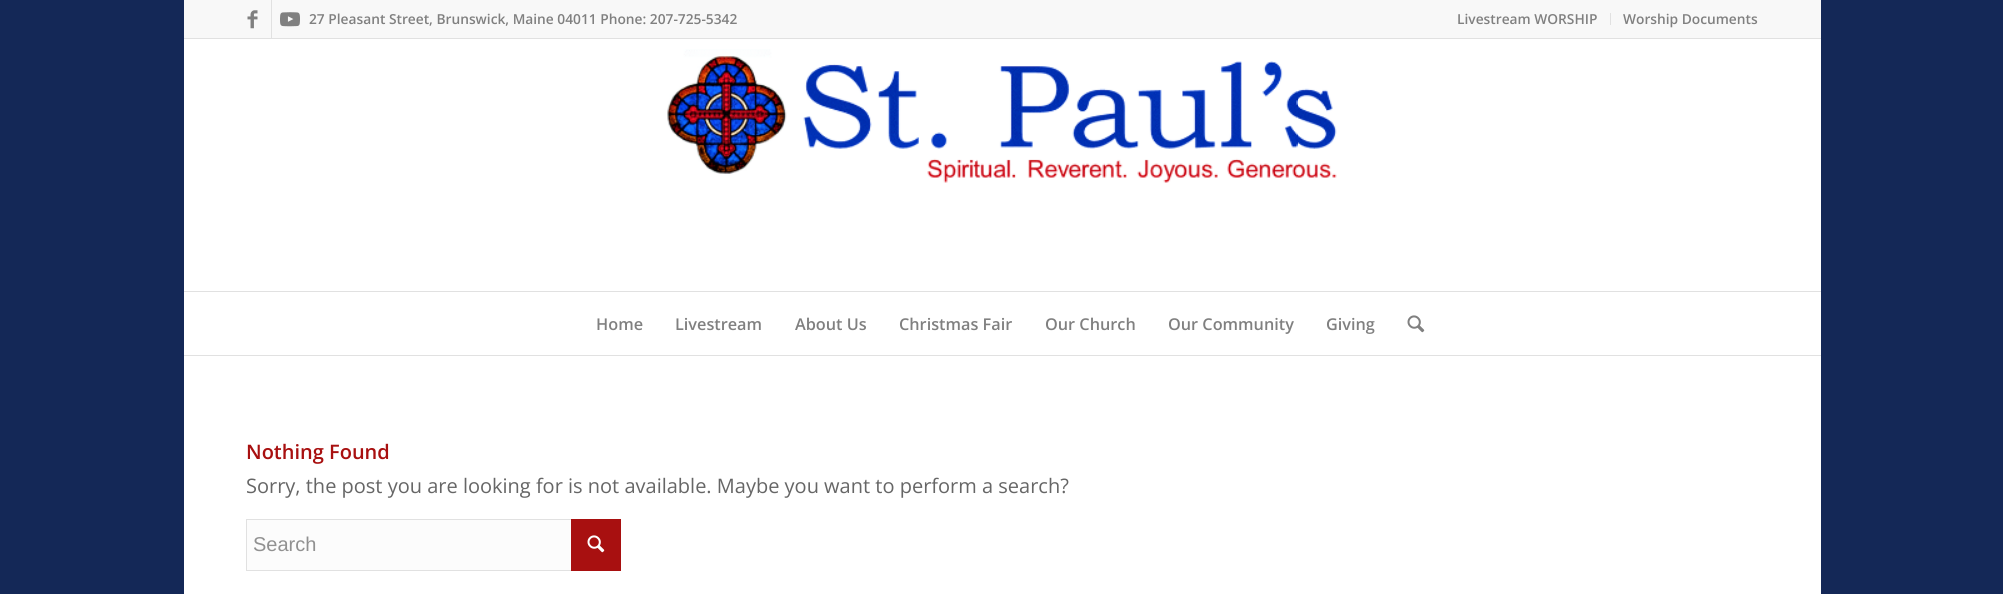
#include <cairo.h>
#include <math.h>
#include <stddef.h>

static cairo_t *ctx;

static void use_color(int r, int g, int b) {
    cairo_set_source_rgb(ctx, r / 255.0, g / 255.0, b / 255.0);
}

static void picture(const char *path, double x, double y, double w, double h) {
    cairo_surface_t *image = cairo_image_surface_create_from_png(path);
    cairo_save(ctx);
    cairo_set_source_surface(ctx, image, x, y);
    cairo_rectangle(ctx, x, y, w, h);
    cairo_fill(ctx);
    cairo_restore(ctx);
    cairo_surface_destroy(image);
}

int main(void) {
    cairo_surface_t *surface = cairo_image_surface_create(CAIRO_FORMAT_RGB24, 2003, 594);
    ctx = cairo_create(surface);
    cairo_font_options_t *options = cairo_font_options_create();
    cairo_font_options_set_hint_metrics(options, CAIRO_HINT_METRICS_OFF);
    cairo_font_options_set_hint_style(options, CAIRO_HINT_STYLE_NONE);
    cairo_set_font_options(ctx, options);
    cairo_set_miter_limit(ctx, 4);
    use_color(20, 40, 87);
    cairo_paint(ctx);
    use_color(248, 248, 248);
    cairo_rectangle(ctx, 184, 0, 1637, 38);
    cairo_fill(ctx);
    use_color(225, 225, 225);
    cairo_rectangle(ctx, 184, 38, 1637, 1);
    cairo_fill(ctx);
    cairo_rectangle(ctx, 271, 0, 1, 38);
    cairo_fill(ctx);
    picture("img1.png", 247, 10, 11, 19);
    picture("img2.png", 280, 12, 20, 15);
    cairo_select_font_face(ctx, "Open Sans SemiBold", CAIRO_FONT_SLANT_NORMAL, CAIRO_FONT_WEIGHT_NORMAL);
    cairo_set_font_size(ctx, 13.75);
    use_color(128, 128, 128);
    cairo_move_to(ctx, 309, 24);
    cairo_show_text(ctx, "27 Pleasant Street, Brunswick, Maine 04011 Phone: 207-725-5342");
    use_color(225, 225, 225);
    cairo_rectangle(ctx, 1610, 13, 1, 12);
    cairo_fill(ctx);
    use_color(128, 128, 128);
    cairo_move_to(ctx, 1457, 24);
    cairo_show_text(ctx, "Livestream WORSHIP");
    cairo_move_to(ctx, 1623, 24);
    cairo_show_text(ctx, "Worship Documents");
    use_color(225, 225, 225);
    cairo_rectangle(ctx, 184, 355, 1637, 1);
    cairo_fill(ctx);
    use_color(255, 255, 255);
    cairo_rectangle(ctx, 184, 39, 1637, 316);
    cairo_fill(ctx);
    picture("img3.png", 667, 49, 670, 134);
    use_color(225, 225, 225);
    cairo_rectangle(ctx, 184, 291, 1637, 1);
    cairo_fill(ctx);
    cairo_set_font_size(ctx, 16.25);
    use_color(128, 128, 128);
    cairo_move_to(ctx, 596, 330);
    cairo_show_text(ctx, "Home");
    cairo_move_to(ctx, 675, 330);
    cairo_show_text(ctx, "Livestream");
    cairo_move_to(ctx, 795, 330);
    cairo_show_text(ctx, "About Us");
    cairo_move_to(ctx, 899, 330);
    cairo_show_text(ctx, "Christmas Fair");
    cairo_move_to(ctx, 1045, 330);
    cairo_show_text(ctx, "Our Church");
    cairo_move_to(ctx, 1168, 330);
    cairo_show_text(ctx, "Our Community");
    cairo_move_to(ctx, 1326, 330);
    cairo_show_text(ctx, "Giving");
    picture("img4.png", 1407, 315, 18, 18);
    use_color(255, 255, 255);
    cairo_rectangle(ctx, 184, 356, 1637, 238);
    cairo_fill(ctx);
    cairo_set_font_size(ctx, 20);
    use_color(168, 16, 16);
    cairo_move_to(ctx, 246, 459);
    cairo_show_text(ctx, "Nothing Found");
    cairo_select_font_face(ctx, "Open Sans", CAIRO_FONT_SLANT_NORMAL, CAIRO_FONT_WEIGHT_NORMAL);
    use_color(102, 102, 102);
    cairo_move_to(ctx, 246, 493);
    cairo_show_text(ctx, "Sorry, the post you are looking for is not available. Maybe you want to perform a search?");
    use_color(252, 252, 252);
    cairo_rectangle(ctx, 247, 520, 324, 50);
    cairo_fill(ctx);
    cairo_rectangle(ctx, 246.5, 519.5, 374, 51);
    use_color(225, 225, 225);
    cairo_set_line_width(ctx, 1);
    cairo_stroke(ctx);
    cairo_select_font_face(ctx, "Liberation Sans", CAIRO_FONT_SLANT_NORMAL, CAIRO_FONT_WEIGHT_NORMAL);
    use_color(145, 145, 145);
    cairo_move_to(ctx, 253, 551);
    cairo_show_text(ctx, "Search");
    use_color(168, 16, 16);
    cairo_rectangle(ctx, 571, 519, 50, 52);
    cairo_fill(ctx);
    picture("img5.png", 587, 535, 18, 18);
    cairo_surface_write_to_png(surface, "result.png");
    cairo_font_options_destroy(options);
    cairo_destroy(ctx);
    cairo_surface_destroy(surface);
    return 0;
}
